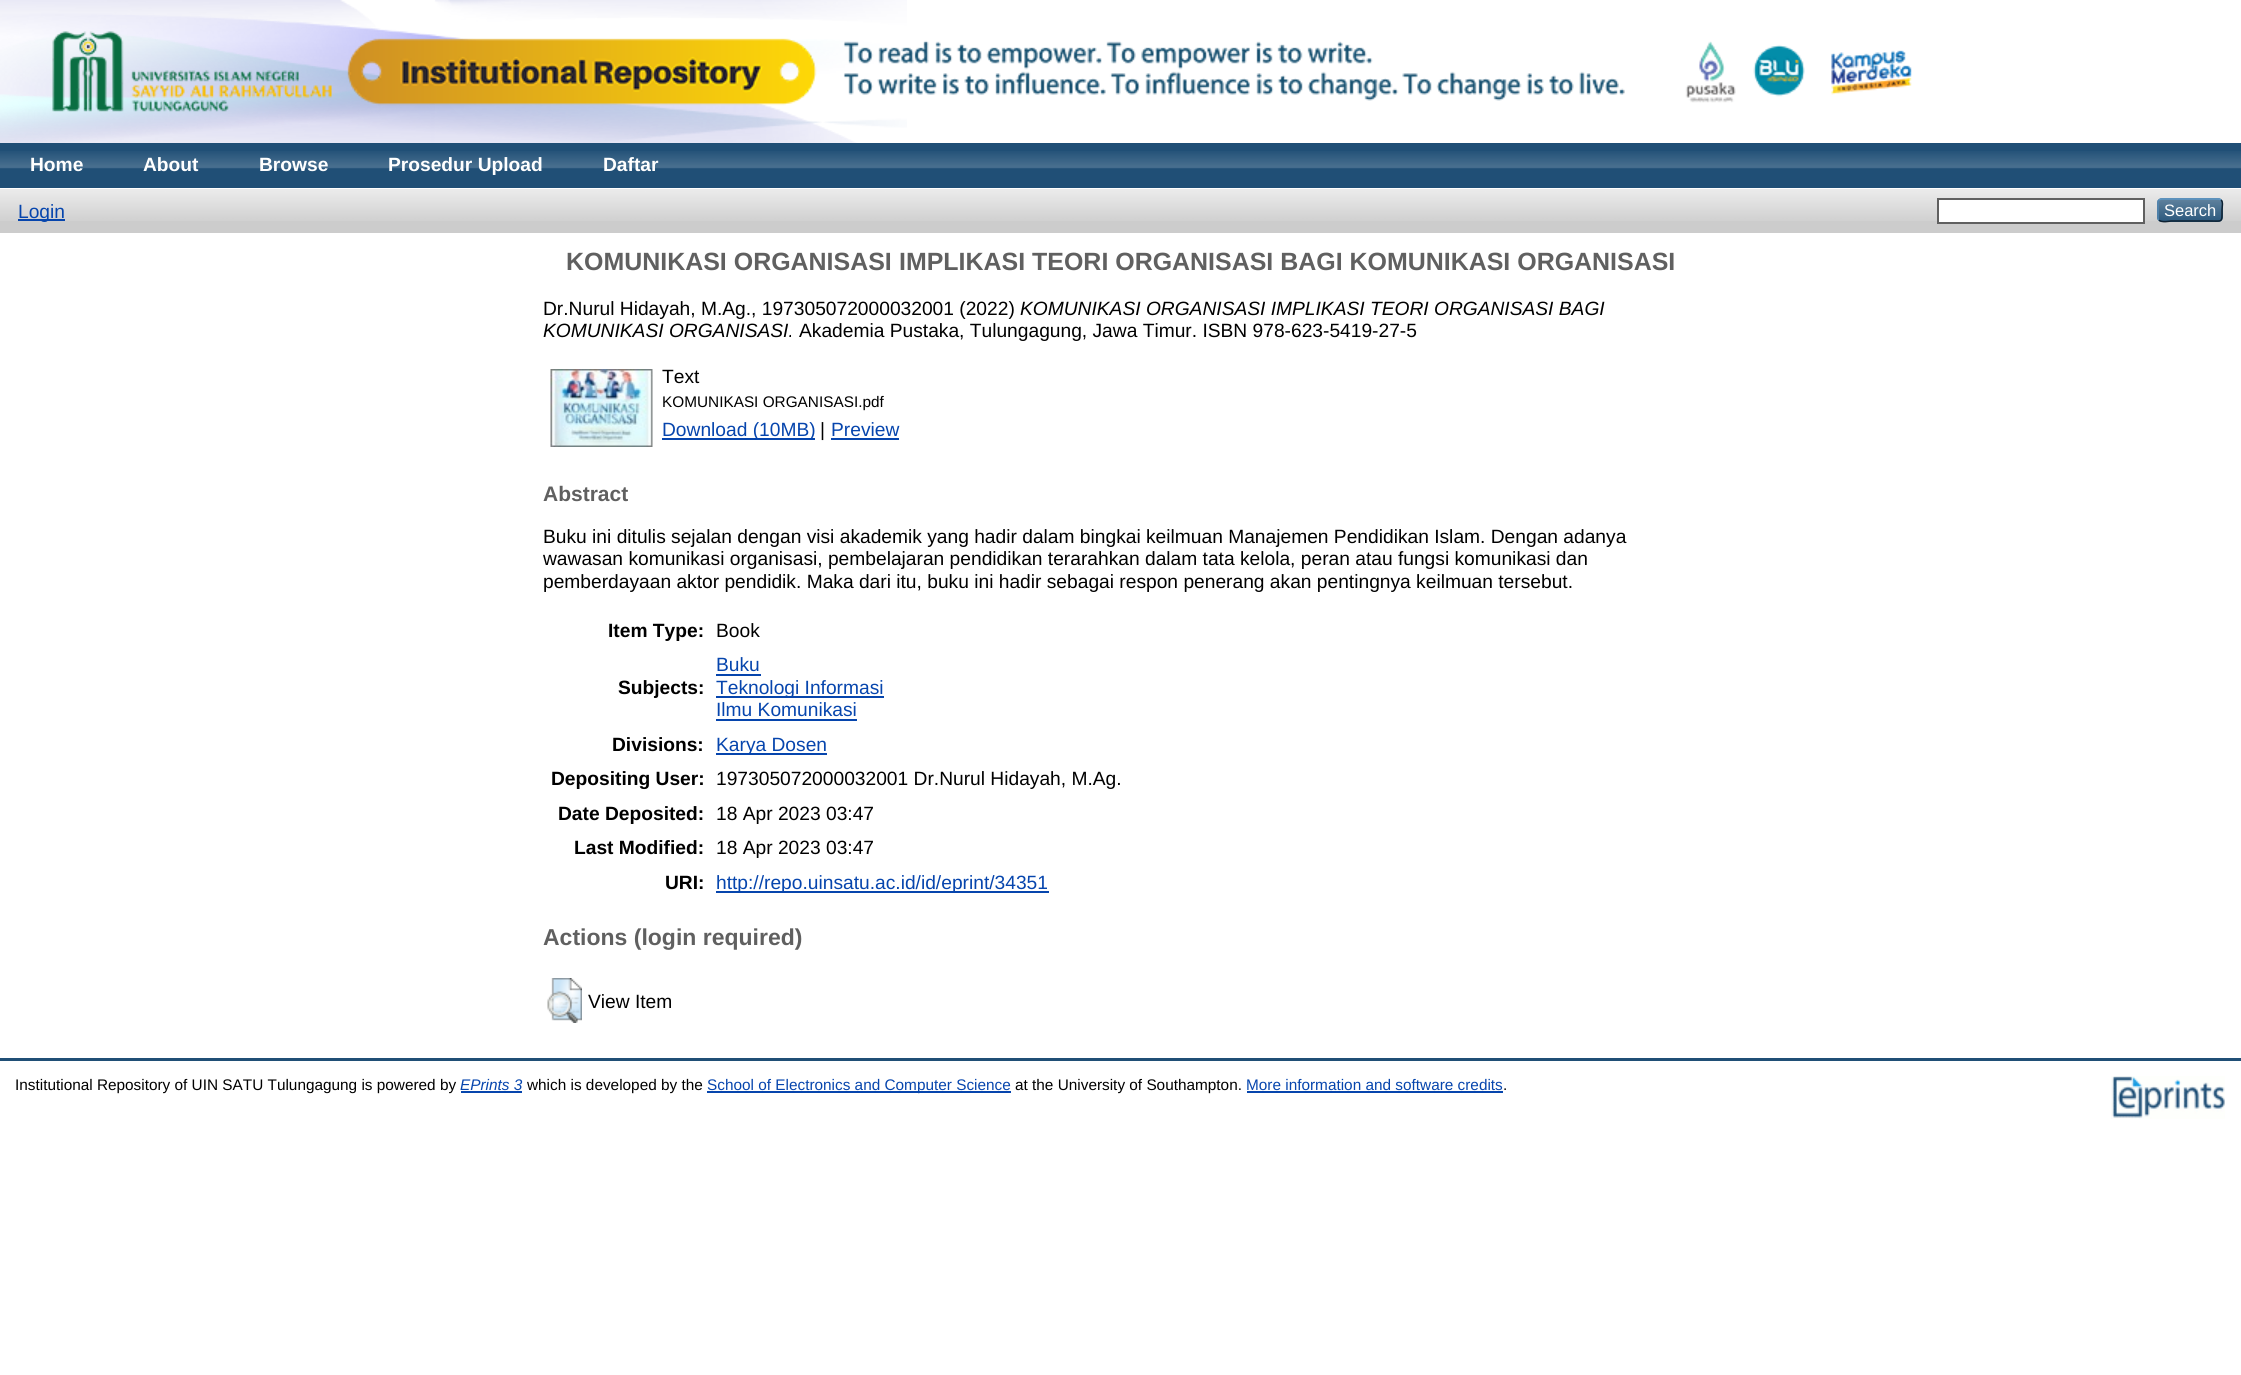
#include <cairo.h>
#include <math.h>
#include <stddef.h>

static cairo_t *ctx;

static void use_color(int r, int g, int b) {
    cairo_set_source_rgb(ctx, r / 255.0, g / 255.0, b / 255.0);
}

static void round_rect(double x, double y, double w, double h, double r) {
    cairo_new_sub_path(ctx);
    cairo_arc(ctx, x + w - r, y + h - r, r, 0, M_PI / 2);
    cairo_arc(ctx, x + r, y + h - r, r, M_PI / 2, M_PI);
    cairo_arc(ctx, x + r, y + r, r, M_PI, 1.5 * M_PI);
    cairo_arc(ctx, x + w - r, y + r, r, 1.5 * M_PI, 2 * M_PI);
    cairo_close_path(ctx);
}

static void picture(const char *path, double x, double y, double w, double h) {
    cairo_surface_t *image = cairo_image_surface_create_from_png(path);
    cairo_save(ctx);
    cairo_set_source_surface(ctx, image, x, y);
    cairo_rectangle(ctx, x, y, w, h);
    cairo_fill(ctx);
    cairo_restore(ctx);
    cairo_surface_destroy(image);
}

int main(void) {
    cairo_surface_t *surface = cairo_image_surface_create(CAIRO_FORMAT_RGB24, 2241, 1375);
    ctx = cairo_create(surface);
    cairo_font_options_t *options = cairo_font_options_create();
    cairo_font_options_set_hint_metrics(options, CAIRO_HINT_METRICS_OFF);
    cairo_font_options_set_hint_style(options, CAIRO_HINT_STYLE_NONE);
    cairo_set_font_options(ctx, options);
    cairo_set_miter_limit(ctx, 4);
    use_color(255, 255, 255);
    cairo_paint(ctx);
    picture("img1.png", 0, 0, 907, 143);
    picture("img2.png", 52, 31, 1860, 81);
    use_color(32, 79, 118);
    cairo_rectangle(ctx, 0, 143, 2241, 45);
    cairo_fill(ctx);
    picture("img3.png", 0, 151, 2241, 18);
    cairo_select_font_face(ctx, "Liberation Sans", CAIRO_FONT_SLANT_NORMAL, CAIRO_FONT_WEIGHT_BOLD);
    cairo_set_font_size(ctx, 19.2);
    use_color(255, 255, 255);
    cairo_move_to(ctx, 30, 171);
    cairo_show_text(ctx, "Home");
    cairo_move_to(ctx, 143, 171);
    cairo_show_text(ctx, "About");
    cairo_move_to(ctx, 259, 171);
    cairo_show_text(ctx, "Browse");
    cairo_move_to(ctx, 388, 171);
    cairo_show_text(ctx, "Prosedur Upload");
    cairo_move_to(ctx, 603, 171);
    cairo_show_text(ctx, "Daftar");
    use_color(204, 204, 204);
    cairo_rectangle(ctx, 0, 189, 2241, 44);
    cairo_fill(ctx);
    picture("img4.png", 0, 189, 2241, 32);
    use_color(6, 69, 173);
    cairo_rectangle(ctx, 18, 219, 47, 2);
    cairo_fill(ctx);
    cairo_select_font_face(ctx, "Liberation Sans", CAIRO_FONT_SLANT_NORMAL, CAIRO_FONT_WEIGHT_NORMAL);
    cairo_move_to(ctx, 18, 218);
    cairo_show_text(ctx, "Login");
    use_color(255, 255, 255);
    cairo_rectangle(ctx, 1938, 199, 206, 24);
    cairo_fill_preserve(ctx);
    use_color(96, 96, 96);
    cairo_stroke(ctx);
    use_color(31, 79, 118);
    round_rect(2157, 198, 66, 24, 5);
    cairo_fill(ctx);
    picture("img5.png", 2157, 198, 66, 24);
    cairo_new_path(ctx);
    cairo_move_to(ctx, 2159, 200);
    cairo_line_to(ctx, 2161, 199);
    cairo_line_to(ctx, 2219, 199);
    cairo_line_to(ctx, 2221, 200);
    use_color(91, 151, 199);
    cairo_set_line_width(ctx, 1.5);
    cairo_stroke(ctx);
    cairo_new_path(ctx);
    cairo_move_to(ctx, 2221, 200);
    cairo_curve_to(ctx, 2223.5, 202, 2222, 207, 2222, 210);
    cairo_curve_to(ctx, 2222, 223, 2223, 221, 2209, 221);
    cairo_line_to(ctx, 2171, 221);
    cairo_curve_to(ctx, 2170.5, 221, 2161.5, 223, 2159, 220);
    use_color(13, 33, 49);
    cairo_stroke(ctx);
    cairo_new_path(ctx);
    cairo_move_to(ctx, 2159, 220);
    cairo_curve_to(ctx, 2158, 219.5, 2158, 218.5, 2158, 217.5);
    cairo_line_to(ctx, 2158, 202.5);
    cairo_curve_to(ctx, 2158, 201.5, 2158, 200.5, 2159, 200);
    use_color(82, 135, 179);
    cairo_stroke(ctx);
    cairo_set_font_size(ctx, 16.5);
    use_color(255, 255, 255);
    cairo_move_to(ctx, 2164, 216);
    cairo_show_text(ctx, "Search");
    cairo_select_font_face(ctx, "Liberation Sans", CAIRO_FONT_SLANT_NORMAL, CAIRO_FONT_WEIGHT_BOLD);
    cairo_set_font_size(ctx, 24.95);
    use_color(96, 96, 96);
    cairo_move_to(ctx, 566, 270);
    cairo_show_text(ctx, "KOMUNIKASI ORGANISASI");
    cairo_move_to(ctx, 899, 270);
    cairo_show_text(ctx, "IMPLIKASI TEORI ORGANISASI BAGI KOMUNIKASI ORGANISASI");
    cairo_select_font_face(ctx, "Liberation Sans", CAIRO_FONT_SLANT_NORMAL, CAIRO_FONT_WEIGHT_NORMAL);
    cairo_set_font_size(ctx, 19.2);
    use_color(0, 0, 0);
    cairo_move_to(ctx, 543, 315);
    cairo_show_text(ctx, "Dr.Nurul Hidayah, M.Ag., 197305072000032001 (2022)");
    cairo_select_font_face(ctx, "Liberation Sans", CAIRO_FONT_SLANT_ITALIC, CAIRO_FONT_WEIGHT_NORMAL);
    cairo_move_to(ctx, 1020, 315);
    cairo_show_text(ctx, "KOMUNIKASI ORGANISASI IMPLIKASI TEORI ORGANISASI BAGI");
    cairo_move_to(ctx, 543, 337);
    cairo_show_text(ctx, "KOMUNIKASI ORGANISASI.");
    cairo_select_font_face(ctx, "Liberation Sans", CAIRO_FONT_SLANT_NORMAL, CAIRO_FONT_WEIGHT_NORMAL);
    cairo_move_to(ctx, 799, 337);
    cairo_show_text(ctx, "Akademia Pustaka, Tulungagung, Jawa Timur. ISBN 978-623-5419-27-5");
    picture("img6.png", 550, 369, 103, 78);
    cairo_move_to(ctx, 662, 383);
    cairo_show_text(ctx, "Text");
    cairo_set_font_size(ctx, 15.35);
    cairo_move_to(ctx, 662, 407);
    cairo_show_text(ctx, "KOMUNIKASI ORGANISASI.pdf");
    use_color(6, 69, 173);
    cairo_rectangle(ctx, 662, 438, 153, 2);
    cairo_fill(ctx);
    cairo_set_font_size(ctx, 19.2);
    cairo_move_to(ctx, 662, 436);
    cairo_show_text(ctx, "Download (10MB)");
    use_color(0, 0, 0);
    cairo_move_to(ctx, 820, 436);
    cairo_show_text(ctx, "|");
    use_color(6, 69, 173);
    cairo_move_to(ctx, 831, 436);
    cairo_show_text(ctx, "Preview");
    cairo_rectangle(ctx, 831, 438, 68, 2);
    cairo_fill(ctx);
    cairo_select_font_face(ctx, "Liberation Sans", CAIRO_FONT_SLANT_NORMAL, CAIRO_FONT_WEIGHT_BOLD);
    cairo_set_font_size(ctx, 21);
    use_color(96, 96, 96);
    cairo_move_to(ctx, 543, 501);
    cairo_show_text(ctx, "Abstract");
    cairo_select_font_face(ctx, "Liberation Sans", CAIRO_FONT_SLANT_NORMAL, CAIRO_FONT_WEIGHT_NORMAL);
    cairo_set_font_size(ctx, 19.2);
    use_color(0, 0, 0);
    cairo_move_to(ctx, 543, 543);
    cairo_show_text(ctx, "Buku ini ditulis sejalan dengan visi akademik yang hadir dalam bingkai keilmuan Manajemen Pendidikan Islam. Dengan adanya");
    cairo_move_to(ctx, 543, 565);
    cairo_show_text(ctx, "wawasan komunikasi organisasi, pembelajaran pendidikan terarahkan dalam tata kelola, peran atau fungsi komunikasi dan");
    cairo_move_to(ctx, 543, 588);
    cairo_show_text(ctx, "pemberdayaan aktor pendidik. Maka dari itu, buku ini hadir sebagai respon penerang akan pentingnya keilmuan tersebut.");
    cairo_select_font_face(ctx, "Liberation Sans", CAIRO_FONT_SLANT_NORMAL, CAIRO_FONT_WEIGHT_BOLD);
    cairo_move_to(ctx, 608, 637);
    cairo_show_text(ctx, "Item Type:");
    cairo_select_font_face(ctx, "Liberation Sans", CAIRO_FONT_SLANT_NORMAL, CAIRO_FONT_WEIGHT_NORMAL);
    cairo_move_to(ctx, 716, 637);
    cairo_show_text(ctx, "Book");
    cairo_select_font_face(ctx, "Liberation Sans", CAIRO_FONT_SLANT_NORMAL, CAIRO_FONT_WEIGHT_BOLD);
    cairo_move_to(ctx, 618, 694);
    cairo_show_text(ctx, "Subjects:");
    cairo_select_font_face(ctx, "Liberation Sans", CAIRO_FONT_SLANT_NORMAL, CAIRO_FONT_WEIGHT_NORMAL);
    use_color(6, 69, 173);
    cairo_move_to(ctx, 716, 671);
    cairo_show_text(ctx, "Buku");
    cairo_rectangle(ctx, 716, 674, 45, 2);
    cairo_fill(ctx);
    cairo_rectangle(ctx, 716, 696, 168, 2);
    cairo_fill(ctx);
    cairo_move_to(ctx, 716, 694);
    cairo_show_text(ctx, "Teknologi Informasi");
    cairo_move_to(ctx, 716, 716);
    cairo_show_text(ctx, "Ilmu Komunikasi");
    cairo_rectangle(ctx, 716, 719, 141, 2);
    cairo_fill(ctx);
    cairo_select_font_face(ctx, "Liberation Sans", CAIRO_FONT_SLANT_NORMAL, CAIRO_FONT_WEIGHT_BOLD);
    use_color(0, 0, 0);
    cairo_move_to(ctx, 612, 751);
    cairo_show_text(ctx, "Divisions:");
    use_color(6, 69, 173);
    cairo_rectangle(ctx, 716, 753, 111, 2);
    cairo_fill(ctx);
    cairo_select_font_face(ctx, "Liberation Sans", CAIRO_FONT_SLANT_NORMAL, CAIRO_FONT_WEIGHT_NORMAL);
    cairo_move_to(ctx, 716, 751);
    cairo_show_text(ctx, "Karya Dosen");
    cairo_select_font_face(ctx, "Liberation Sans", CAIRO_FONT_SLANT_NORMAL, CAIRO_FONT_WEIGHT_BOLD);
    use_color(0, 0, 0);
    cairo_move_to(ctx, 551, 785);
    cairo_show_text(ctx, "Depositing User:");
    cairo_select_font_face(ctx, "Liberation Sans", CAIRO_FONT_SLANT_NORMAL, CAIRO_FONT_WEIGHT_NORMAL);
    cairo_move_to(ctx, 716, 785);
    cairo_show_text(ctx, "197305072000032001 Dr.Nurul Hidayah, M.Ag.");
    cairo_select_font_face(ctx, "Liberation Sans", CAIRO_FONT_SLANT_NORMAL, CAIRO_FONT_WEIGHT_BOLD);
    cairo_move_to(ctx, 558, 820);
    cairo_show_text(ctx, "Date Deposited:");
    cairo_select_font_face(ctx, "Liberation Sans", CAIRO_FONT_SLANT_NORMAL, CAIRO_FONT_WEIGHT_NORMAL);
    cairo_move_to(ctx, 716, 820);
    cairo_show_text(ctx, "18 Apr 2023 03:47");
    cairo_select_font_face(ctx, "Liberation Sans", CAIRO_FONT_SLANT_NORMAL, CAIRO_FONT_WEIGHT_BOLD);
    cairo_move_to(ctx, 574, 854);
    cairo_show_text(ctx, "Last Modified:");
    cairo_select_font_face(ctx, "Liberation Sans", CAIRO_FONT_SLANT_NORMAL, CAIRO_FONT_WEIGHT_NORMAL);
    cairo_move_to(ctx, 716, 854);
    cairo_show_text(ctx, "18 Apr 2023 03:47");
    cairo_select_font_face(ctx, "Liberation Sans", CAIRO_FONT_SLANT_NORMAL, CAIRO_FONT_WEIGHT_BOLD);
    cairo_move_to(ctx, 665, 889);
    cairo_show_text(ctx, "URI:");
    use_color(6, 69, 173);
    cairo_rectangle(ctx, 716, 891, 333, 2);
    cairo_fill(ctx);
    cairo_select_font_face(ctx, "Liberation Sans", CAIRO_FONT_SLANT_NORMAL, CAIRO_FONT_WEIGHT_NORMAL);
    cairo_move_to(ctx, 716, 889);
    cairo_show_text(ctx, "http://repo.uinsatu.ac.id/id/eprint/34351");
    cairo_select_font_face(ctx, "Liberation Sans", CAIRO_FONT_SLANT_NORMAL, CAIRO_FONT_WEIGHT_BOLD);
    cairo_set_font_size(ctx, 23);
    use_color(96, 96, 96);
    cairo_move_to(ctx, 543, 945);
    cairo_show_text(ctx, "Actions (login required)");
    picture("img7.png", 547, 978, 35, 45);
    cairo_select_font_face(ctx, "Liberation Sans", CAIRO_FONT_SLANT_NORMAL, CAIRO_FONT_WEIGHT_NORMAL);
    cairo_set_font_size(ctx, 19.2);
    use_color(0, 0, 0);
    cairo_move_to(ctx, 588, 1008);
    cairo_show_text(ctx, "View Item");
    use_color(32, 79, 118);
    cairo_rectangle(ctx, 0, 1058, 2241, 3);
    cairo_fill(ctx);
    cairo_set_font_size(ctx, 15.35);
    use_color(0, 0, 0);
    cairo_move_to(ctx, 15, 1090);
    cairo_show_text(ctx, "Institutional Repository of UIN SATU Tulungagung is powered by");
    cairo_select_font_face(ctx, "Liberation Sans", CAIRO_FONT_SLANT_ITALIC, CAIRO_FONT_WEIGHT_NORMAL);
    use_color(6, 69, 173);
    cairo_move_to(ctx, 460, 1090);
    cairo_show_text(ctx, "EPrints 3");
    cairo_rectangle(ctx, 461, 1091, 61, 2);
    cairo_fill(ctx);
    cairo_select_font_face(ctx, "Liberation Sans", CAIRO_FONT_SLANT_NORMAL, CAIRO_FONT_WEIGHT_NORMAL);
    use_color(0, 0, 0);
    cairo_move_to(ctx, 527, 1090);
    cairo_show_text(ctx, "which is developed by the");
    use_color(6, 69, 173);
    cairo_rectangle(ctx, 707, 1091, 304, 2);
    cairo_fill(ctx);
    cairo_move_to(ctx, 707, 1090);
    cairo_show_text(ctx, "School of Electronics and Computer Science");
    use_color(0, 0, 0);
    cairo_move_to(ctx, 1015, 1090);
    cairo_show_text(ctx, "at the University of Southampton.");
    use_color(6, 69, 173);
    cairo_move_to(ctx, 1246, 1090);
    cairo_show_text(ctx, "More information and software credits");
    cairo_rectangle(ctx, 1247, 1091, 256, 2);
    cairo_fill(ctx);
    use_color(0, 0, 0);
    cairo_move_to(ctx, 1503, 1090);
    cairo_show_text(ctx, ".");
    picture("img8.png", 2111, 1076, 114, 43);
    cairo_surface_write_to_png(surface, "result.png");
    cairo_font_options_destroy(options);
    cairo_destroy(ctx);
    cairo_surface_destroy(surface);
    return 0;
}
